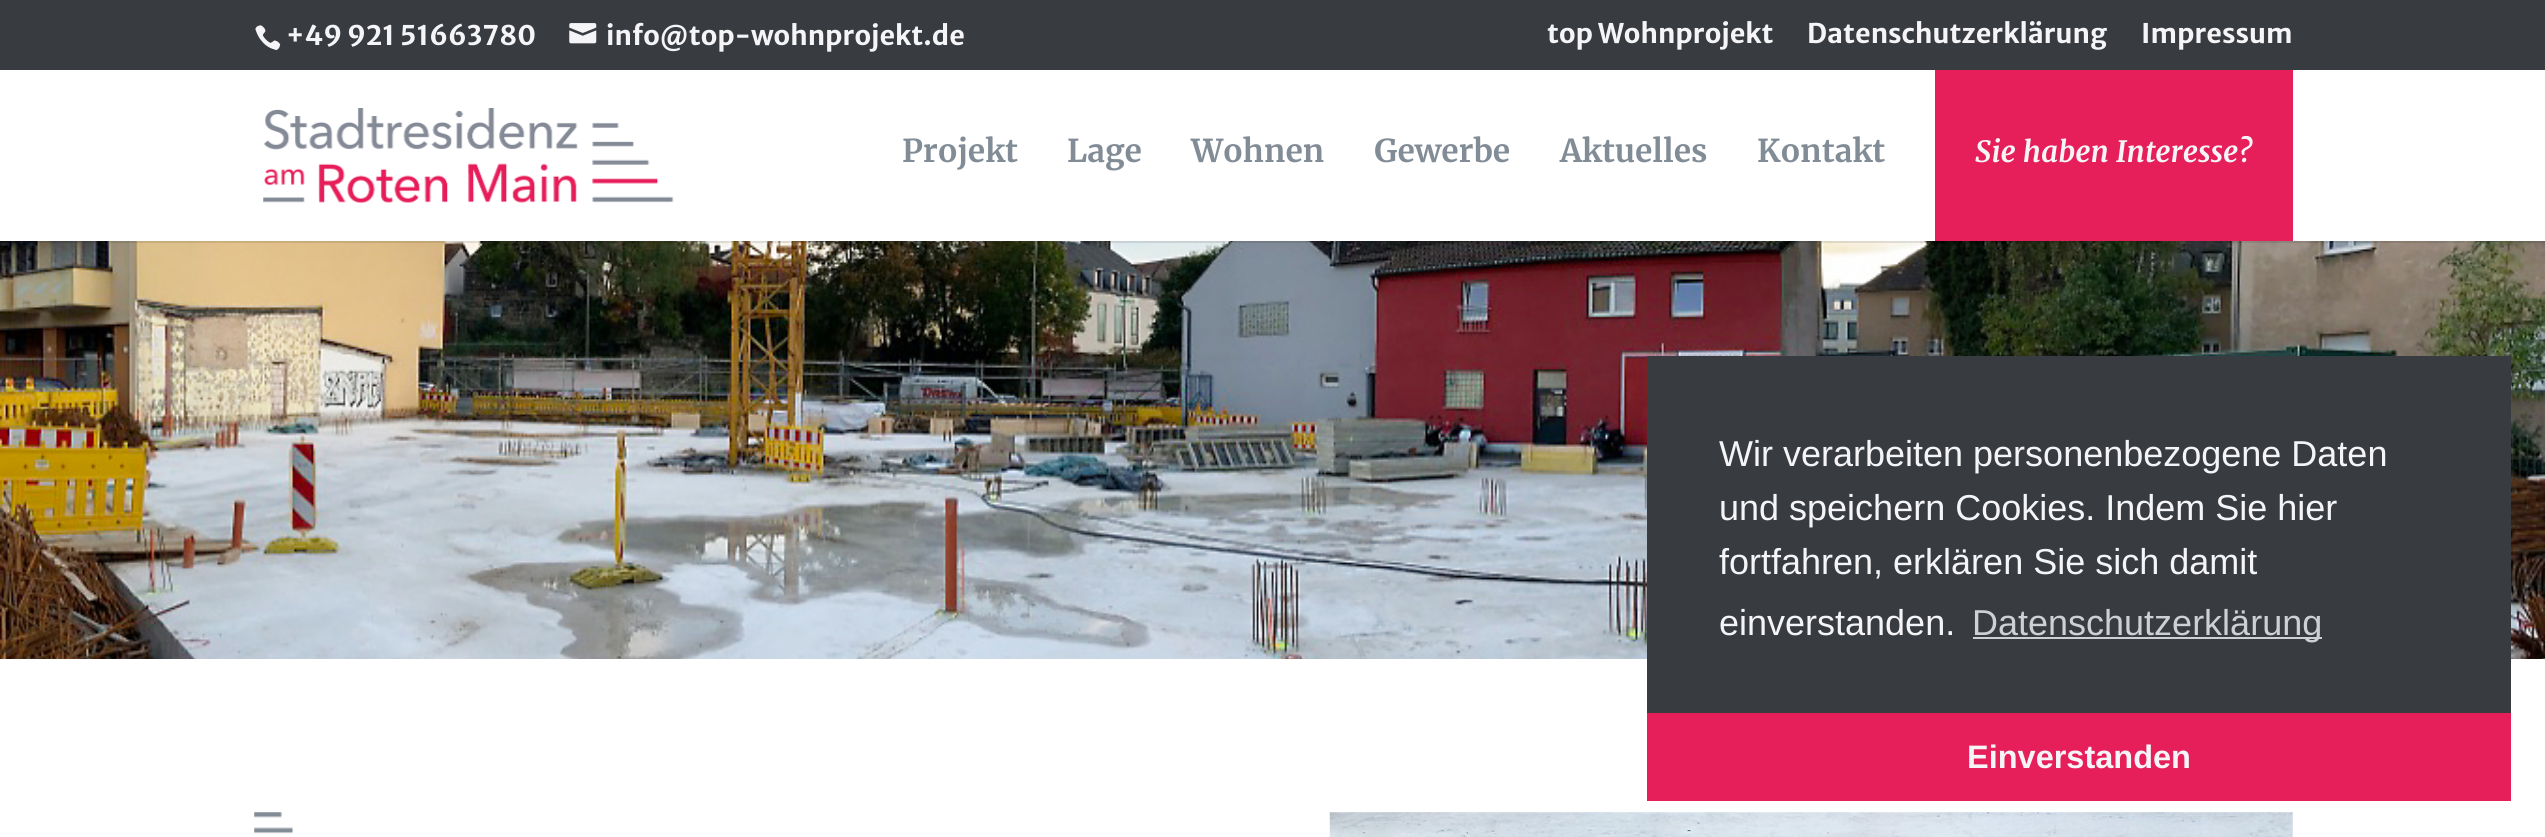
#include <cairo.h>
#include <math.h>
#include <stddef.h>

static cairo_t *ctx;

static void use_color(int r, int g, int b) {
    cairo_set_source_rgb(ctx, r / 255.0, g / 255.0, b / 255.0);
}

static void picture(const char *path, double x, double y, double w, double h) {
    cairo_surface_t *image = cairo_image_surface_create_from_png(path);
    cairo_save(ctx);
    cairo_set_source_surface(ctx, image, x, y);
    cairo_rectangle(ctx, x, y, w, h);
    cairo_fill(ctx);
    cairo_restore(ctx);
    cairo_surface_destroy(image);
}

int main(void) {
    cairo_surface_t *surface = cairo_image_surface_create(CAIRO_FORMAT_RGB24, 2545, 837);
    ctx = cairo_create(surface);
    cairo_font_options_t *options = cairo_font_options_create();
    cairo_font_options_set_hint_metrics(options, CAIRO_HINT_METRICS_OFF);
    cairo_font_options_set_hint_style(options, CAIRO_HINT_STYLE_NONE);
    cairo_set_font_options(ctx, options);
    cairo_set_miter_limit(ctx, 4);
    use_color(255, 255, 255);
    cairo_paint(ctx);
    use_color(56, 60, 65);
    cairo_rectangle(ctx, 0, 0, 2545, 70);
    cairo_fill(ctx);
    picture("img1.png", 255, 25, 26, 26);
    cairo_select_font_face(ctx, "Merriweather Sans", CAIRO_FONT_SLANT_NORMAL, CAIRO_FONT_WEIGHT_BOLD);
    cairo_set_font_size(ctx, 27);
    use_color(245, 245, 247);
    cairo_move_to(ctx, 286, 45);
    cairo_show_text(ctx, "+49 921 51663780");
    picture("img2.png", 569, 23, 28, 21);
    cairo_move_to(ctx, 606, 45);
    cairo_show_text(ctx, "info@top-wohnprojekt.de");
    cairo_move_to(ctx, 1547, 43);
    cairo_show_text(ctx, "top Wohnprojekt");
    cairo_move_to(ctx, 1807, 43);
    cairo_show_text(ctx, "Datenschutzerklärung");
    cairo_move_to(ctx, 2141, 43);
    cairo_show_text(ctx, "Impressum");
    picture("img4.png", 0, 241, 2545, 418);
    cairo_set_source_rgba(ctx, 0, 0, 0, 0.1);
    cairo_rectangle(ctx, 0, 241, 2545, 2);
    cairo_fill(ctx);
    picture("img3.png", 263, 108, 411, 95);
    cairo_select_font_face(ctx, "Merriweather", CAIRO_FONT_SLANT_NORMAL, CAIRO_FONT_WEIGHT_BOLD);
    cairo_set_font_size(ctx, 31.5);
    use_color(130, 140, 150);
    cairo_move_to(ctx, 902, 162);
    cairo_show_text(ctx, "Projekt");
    cairo_move_to(ctx, 1067, 162);
    cairo_show_text(ctx, "Lage");
    cairo_move_to(ctx, 1191, 162);
    cairo_show_text(ctx, "Wohnen");
    cairo_move_to(ctx, 1374, 162);
    cairo_show_text(ctx, "Gewerbe");
    cairo_move_to(ctx, 1560, 162);
    cairo_show_text(ctx, "Aktuelles");
    cairo_move_to(ctx, 1757, 162);
    cairo_show_text(ctx, "Kontakt");
    use_color(230, 30, 90);
    cairo_rectangle(ctx, 1935, 70, 358, 171);
    cairo_fill(ctx);
    cairo_select_font_face(ctx, "Merriweather", CAIRO_FONT_SLANT_ITALIC, CAIRO_FONT_WEIGHT_BOLD);
    cairo_set_font_size(ctx, 29.25);
    use_color(245, 245, 247);
    cairo_move_to(ctx, 1975, 162);
    cairo_show_text(ctx, "Sie haben Interesse?");
    picture("img5.png", 254, 812, 40, 22);
    picture("img6.png", 1329, 812, 964, 25);
    use_color(56, 60, 65);
    cairo_rectangle(ctx, 1647, 356, 864, 357);
    cairo_fill(ctx);
    cairo_select_font_face(ctx, "Liberation Sans", CAIRO_FONT_SLANT_NORMAL, CAIRO_FONT_WEIGHT_NORMAL);
    cairo_set_font_size(ctx, 36);
    use_color(245, 245, 247);
    cairo_move_to(ctx, 1719, 466);
    cairo_show_text(ctx, "Wir verarbeiten personenbezogene Daten");
    cairo_move_to(ctx, 1719, 520);
    cairo_show_text(ctx, "und speichern Cookies. Indem Sie hier");
    cairo_move_to(ctx, 1719, 574);
    cairo_show_text(ctx, "fortfahren, erklären Sie sich damit");
    cairo_move_to(ctx, 1719, 635);
    cairo_show_text(ctx, "einverstanden.");
    use_color(207, 208, 211);
    cairo_rectangle(ctx, 1973, 637, 349, 2);
    cairo_fill(ctx);
    cairo_move_to(ctx, 1972, 635);
    cairo_show_text(ctx, "Datenschutzerklärung");
    use_color(230, 30, 90);
    cairo_rectangle(ctx, 1647, 713, 864, 88);
    cairo_fill(ctx);
    cairo_select_font_face(ctx, "Liberation Sans", CAIRO_FONT_SLANT_NORMAL, CAIRO_FONT_WEIGHT_BOLD);
    cairo_set_font_size(ctx, 32.5);
    use_color(245, 245, 247);
    cairo_move_to(ctx, 1967, 768);
    cairo_show_text(ctx, "Einverstanden");
    cairo_surface_write_to_png(surface, "result.png");
    cairo_font_options_destroy(options);
    cairo_destroy(ctx);
    cairo_surface_destroy(surface);
    return 0;
}
